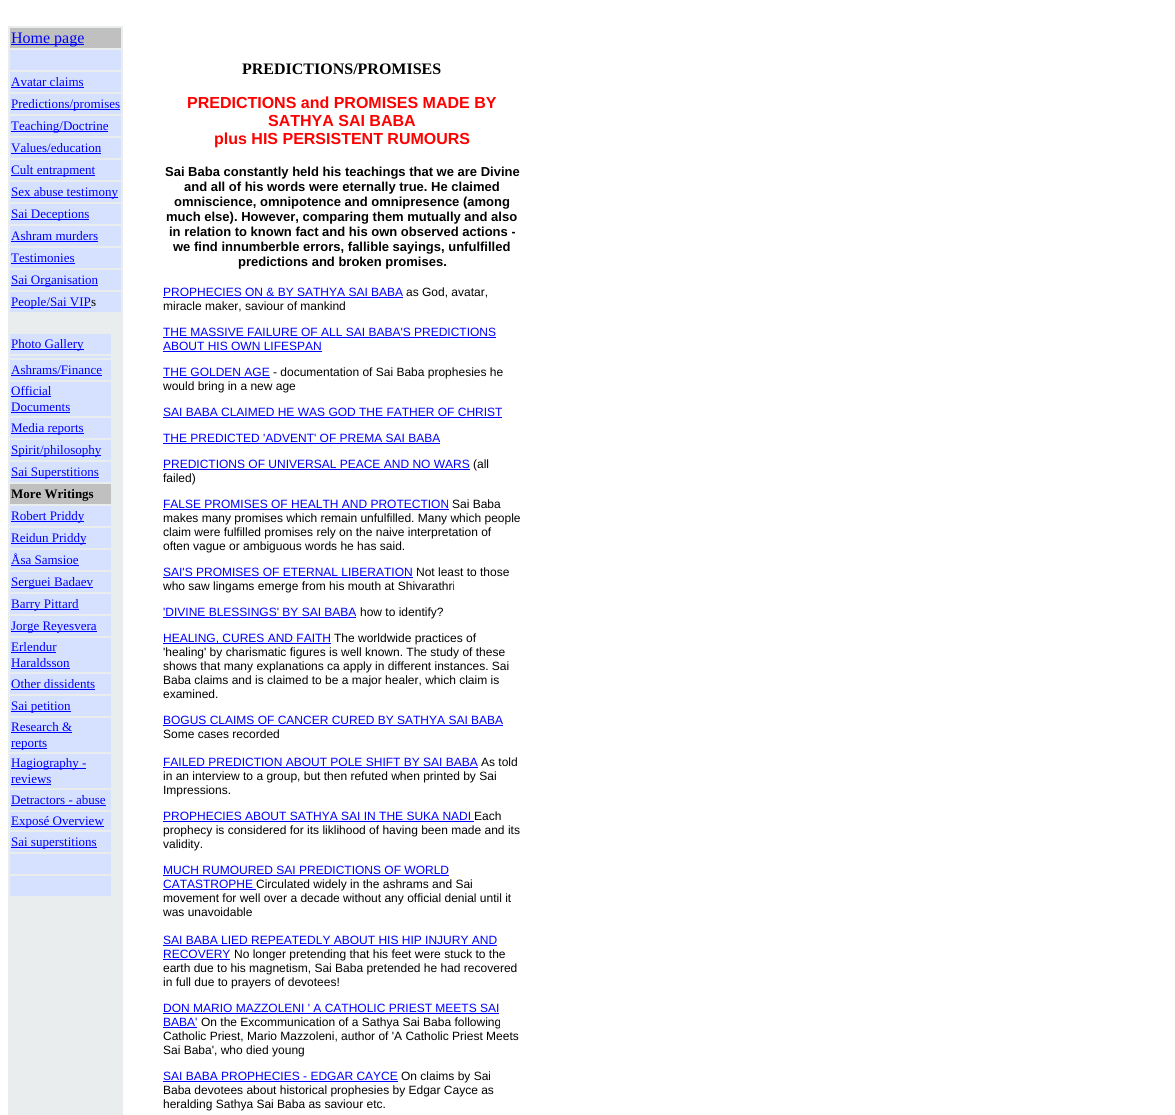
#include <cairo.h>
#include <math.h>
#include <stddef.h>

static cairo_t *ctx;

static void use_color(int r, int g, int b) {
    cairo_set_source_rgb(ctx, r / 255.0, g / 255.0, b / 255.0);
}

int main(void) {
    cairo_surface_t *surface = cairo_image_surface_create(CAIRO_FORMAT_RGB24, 1175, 1115);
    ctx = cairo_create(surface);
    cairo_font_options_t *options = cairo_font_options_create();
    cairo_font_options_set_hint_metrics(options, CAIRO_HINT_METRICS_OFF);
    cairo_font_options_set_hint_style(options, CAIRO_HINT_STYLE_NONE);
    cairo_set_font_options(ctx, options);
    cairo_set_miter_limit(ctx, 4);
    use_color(255, 255, 255);
    cairo_paint(ctx);
    use_color(234, 237, 238);
    cairo_rectangle(ctx, 8, 26, 115, 1089);
    cairo_fill(ctx);
    use_color(192, 192, 192);
    cairo_rectangle(ctx, 10, 28, 111, 20);
    cairo_fill(ctx);
    use_color(0, 0, 255);
    cairo_rectangle(ctx, 11, 44, 73, 1);
    cairo_fill(ctx);
    cairo_select_font_face(ctx, "Liberation Serif", CAIRO_FONT_SLANT_NORMAL, CAIRO_FONT_WEIGHT_NORMAL);
    cairo_set_font_size(ctx, 16);
    cairo_move_to(ctx, 11, 43);
    cairo_show_text(ctx, "Home page");
    use_color(214, 224, 255);
    cairo_rectangle(ctx, 10, 50, 111, 20);
    cairo_fill(ctx);
    cairo_rectangle(ctx, 10, 72, 111, 20);
    cairo_fill(ctx);
    cairo_set_font_size(ctx, 13);
    use_color(0, 0, 255);
    cairo_move_to(ctx, 11, 86);
    cairo_show_text(ctx, "Avatar claims");
    cairo_rectangle(ctx, 11, 87, 73, 1);
    cairo_fill(ctx);
    use_color(214, 224, 255);
    cairo_rectangle(ctx, 10, 94, 111, 20);
    cairo_fill(ctx);
    use_color(0, 0, 255);
    cairo_rectangle(ctx, 11, 109, 109, 1);
    cairo_fill(ctx);
    cairo_move_to(ctx, 11, 108);
    cairo_show_text(ctx, "Predictions/promises");
    use_color(214, 224, 255);
    cairo_rectangle(ctx, 10, 116, 111, 20);
    cairo_fill(ctx);
    use_color(0, 0, 255);
    cairo_rectangle(ctx, 11, 131, 97, 1);
    cairo_fill(ctx);
    cairo_move_to(ctx, 11, 130);
    cairo_show_text(ctx, "Teaching/Doctrine");
    use_color(214, 224, 255);
    cairo_rectangle(ctx, 10, 138, 111, 20);
    cairo_fill(ctx);
    use_color(0, 0, 255);
    cairo_move_to(ctx, 11, 152);
    cairo_show_text(ctx, "Values/education");
    cairo_rectangle(ctx, 11, 153, 90, 1);
    cairo_fill(ctx);
    use_color(214, 224, 255);
    cairo_rectangle(ctx, 10, 160, 111, 20);
    cairo_fill(ctx);
    use_color(0, 0, 255);
    cairo_rectangle(ctx, 11, 175, 84, 1);
    cairo_fill(ctx);
    cairo_move_to(ctx, 11, 174);
    cairo_show_text(ctx, "Cult entrapment");
    use_color(214, 224, 255);
    cairo_rectangle(ctx, 10, 182, 111, 20);
    cairo_fill(ctx);
    use_color(0, 0, 255);
    cairo_rectangle(ctx, 11, 197, 107, 1);
    cairo_fill(ctx);
    cairo_move_to(ctx, 11, 196);
    cairo_show_text(ctx, "Sex abuse testimony");
    use_color(214, 224, 255);
    cairo_rectangle(ctx, 10, 204, 111, 20);
    cairo_fill(ctx);
    use_color(0, 0, 255);
    cairo_rectangle(ctx, 11, 219, 78, 1);
    cairo_fill(ctx);
    cairo_move_to(ctx, 11, 218);
    cairo_show_text(ctx, "Sai Deceptions");
    use_color(214, 224, 255);
    cairo_rectangle(ctx, 10, 226, 111, 20);
    cairo_fill(ctx);
    use_color(0, 0, 255);
    cairo_move_to(ctx, 11, 240);
    cairo_show_text(ctx, "Ashram murders");
    cairo_rectangle(ctx, 11, 241, 87, 1);
    cairo_fill(ctx);
    use_color(214, 224, 255);
    cairo_rectangle(ctx, 10, 248, 111, 20);
    cairo_fill(ctx);
    use_color(0, 0, 255);
    cairo_move_to(ctx, 11, 262);
    cairo_show_text(ctx, "Testimonies");
    cairo_rectangle(ctx, 11, 263, 64, 1);
    cairo_fill(ctx);
    use_color(214, 224, 255);
    cairo_rectangle(ctx, 10, 270, 111, 20);
    cairo_fill(ctx);
    use_color(0, 0, 255);
    cairo_rectangle(ctx, 11, 285, 87, 1);
    cairo_fill(ctx);
    cairo_move_to(ctx, 11, 284);
    cairo_show_text(ctx, "Sai Organisation");
    use_color(214, 224, 255);
    cairo_rectangle(ctx, 10, 292, 111, 20);
    cairo_fill(ctx);
    use_color(0, 0, 255);
    cairo_rectangle(ctx, 11, 307, 80, 1);
    cairo_fill(ctx);
    cairo_move_to(ctx, 11, 306);
    cairo_show_text(ctx, "People/Sai VIP");
    use_color(0, 0, 0);
    cairo_move_to(ctx, 91, 306);
    cairo_show_text(ctx, "s");
    use_color(214, 224, 255);
    cairo_rectangle(ctx, 10, 334, 101, 20);
    cairo_fill(ctx);
    use_color(0, 0, 255);
    cairo_rectangle(ctx, 11, 349, 73, 1);
    cairo_fill(ctx);
    cairo_move_to(ctx, 11, 348);
    cairo_show_text(ctx, "Photo Gallery");
    use_color(214, 224, 255);
    cairo_rectangle(ctx, 10, 356, 101, 2);
    cairo_fill(ctx);
    cairo_rectangle(ctx, 10, 360, 101, 20);
    cairo_fill(ctx);
    use_color(0, 0, 255);
    cairo_move_to(ctx, 11, 374);
    cairo_show_text(ctx, "Ashrams/Finance");
    cairo_rectangle(ctx, 11, 375, 91, 1);
    cairo_fill(ctx);
    use_color(214, 224, 255);
    cairo_rectangle(ctx, 10, 382, 101, 34);
    cairo_fill(ctx);
    use_color(0, 0, 255);
    cairo_move_to(ctx, 11, 395);
    cairo_show_text(ctx, "Official");
    cairo_rectangle(ctx, 11, 396, 40, 1);
    cairo_fill(ctx);
    cairo_move_to(ctx, 11, 411);
    cairo_show_text(ctx, "Documents");
    cairo_rectangle(ctx, 11, 412, 59, 1);
    cairo_fill(ctx);
    use_color(214, 224, 255);
    cairo_rectangle(ctx, 10, 418, 101, 20);
    cairo_fill(ctx);
    use_color(0, 0, 255);
    cairo_rectangle(ctx, 11, 433, 73, 1);
    cairo_fill(ctx);
    cairo_move_to(ctx, 11, 432);
    cairo_show_text(ctx, "Media reports");
    use_color(214, 224, 255);
    cairo_rectangle(ctx, 10, 440, 101, 20);
    cairo_fill(ctx);
    use_color(0, 0, 255);
    cairo_rectangle(ctx, 11, 455, 90, 1);
    cairo_fill(ctx);
    cairo_move_to(ctx, 11, 454);
    cairo_show_text(ctx, "Spirit/philosophy");
    use_color(214, 224, 255);
    cairo_rectangle(ctx, 10, 462, 101, 20);
    cairo_fill(ctx);
    use_color(0, 0, 255);
    cairo_rectangle(ctx, 11, 477, 88, 1);
    cairo_fill(ctx);
    cairo_move_to(ctx, 11, 476);
    cairo_show_text(ctx, "Sai Superstitions");
    use_color(192, 192, 192);
    cairo_rectangle(ctx, 10, 484, 101, 20);
    cairo_fill(ctx);
    cairo_select_font_face(ctx, "Liberation Serif", CAIRO_FONT_SLANT_NORMAL, CAIRO_FONT_WEIGHT_BOLD);
    use_color(0, 0, 0);
    cairo_move_to(ctx, 11, 498);
    cairo_show_text(ctx, "More Writings");
    use_color(214, 224, 255);
    cairo_rectangle(ctx, 10, 506, 101, 20);
    cairo_fill(ctx);
    use_color(0, 0, 255);
    cairo_rectangle(ctx, 11, 521, 73, 1);
    cairo_fill(ctx);
    cairo_select_font_face(ctx, "Liberation Serif", CAIRO_FONT_SLANT_NORMAL, CAIRO_FONT_WEIGHT_NORMAL);
    cairo_move_to(ctx, 11, 520);
    cairo_show_text(ctx, "Robert Priddy");
    use_color(214, 224, 255);
    cairo_rectangle(ctx, 10, 528, 101, 20);
    cairo_fill(ctx);
    use_color(0, 0, 255);
    cairo_rectangle(ctx, 11, 543, 75, 1);
    cairo_fill(ctx);
    cairo_move_to(ctx, 11, 542);
    cairo_show_text(ctx, "Reidun Priddy");
    use_color(214, 224, 255);
    cairo_rectangle(ctx, 10, 550, 101, 20);
    cairo_fill(ctx);
    use_color(0, 0, 255);
    cairo_move_to(ctx, 11, 564);
    cairo_show_text(ctx, "Åsa Samsioe");
    cairo_rectangle(ctx, 11, 565, 68, 1);
    cairo_fill(ctx);
    use_color(214, 224, 255);
    cairo_rectangle(ctx, 10, 572, 101, 20);
    cairo_fill(ctx);
    use_color(0, 0, 255);
    cairo_rectangle(ctx, 11, 587, 82, 1);
    cairo_fill(ctx);
    cairo_move_to(ctx, 11, 586);
    cairo_show_text(ctx, "Serguei Badaev");
    use_color(214, 224, 255);
    cairo_rectangle(ctx, 10, 594, 101, 20);
    cairo_fill(ctx);
    use_color(0, 0, 255);
    cairo_rectangle(ctx, 11, 609, 68, 1);
    cairo_fill(ctx);
    cairo_move_to(ctx, 11, 608);
    cairo_show_text(ctx, "Barry Pittard");
    use_color(214, 224, 255);
    cairo_rectangle(ctx, 10, 616, 101, 20);
    cairo_fill(ctx);
    use_color(0, 0, 255);
    cairo_rectangle(ctx, 11, 631, 86, 1);
    cairo_fill(ctx);
    cairo_move_to(ctx, 11, 630);
    cairo_show_text(ctx, "Jorge Reyesvera");
    use_color(214, 224, 255);
    cairo_rectangle(ctx, 10, 638, 101, 34);
    cairo_fill(ctx);
    use_color(0, 0, 255);
    cairo_move_to(ctx, 11, 651);
    cairo_show_text(ctx, "Erlendur");
    cairo_rectangle(ctx, 11, 652, 45, 1);
    cairo_fill(ctx);
    cairo_move_to(ctx, 11, 667);
    cairo_show_text(ctx, "Haraldsson");
    cairo_rectangle(ctx, 11, 668, 59, 1);
    cairo_fill(ctx);
    use_color(214, 224, 255);
    cairo_rectangle(ctx, 10, 674, 101, 20);
    cairo_fill(ctx);
    use_color(0, 0, 255);
    cairo_move_to(ctx, 11, 688);
    cairo_show_text(ctx, "Other dissidents");
    cairo_rectangle(ctx, 11, 689, 84, 1);
    cairo_fill(ctx);
    use_color(214, 224, 255);
    cairo_rectangle(ctx, 10, 696, 101, 20);
    cairo_fill(ctx);
    use_color(0, 0, 255);
    cairo_rectangle(ctx, 11, 711, 60, 1);
    cairo_fill(ctx);
    cairo_move_to(ctx, 11, 710);
    cairo_show_text(ctx, "Sai petition");
    use_color(214, 224, 255);
    cairo_rectangle(ctx, 10, 718, 101, 34);
    cairo_fill(ctx);
    use_color(0, 0, 255);
    cairo_move_to(ctx, 11, 731);
    cairo_show_text(ctx, "Research &");
    cairo_rectangle(ctx, 11, 732, 61, 1);
    cairo_fill(ctx);
    cairo_rectangle(ctx, 11, 748, 36, 1);
    cairo_fill(ctx);
    cairo_move_to(ctx, 11, 747);
    cairo_show_text(ctx, "reports");
    use_color(214, 224, 255);
    cairo_rectangle(ctx, 10, 754, 101, 34);
    cairo_fill(ctx);
    use_color(0, 0, 255);
    cairo_rectangle(ctx, 11, 768, 75, 1);
    cairo_fill(ctx);
    cairo_move_to(ctx, 11, 767);
    cairo_show_text(ctx, "Hagiography -");
    cairo_move_to(ctx, 11, 783);
    cairo_show_text(ctx, "reviews");
    cairo_rectangle(ctx, 11, 784, 40, 1);
    cairo_fill(ctx);
    use_color(214, 224, 255);
    cairo_rectangle(ctx, 10, 790, 101, 20);
    cairo_fill(ctx);
    use_color(0, 0, 255);
    cairo_move_to(ctx, 11, 804);
    cairo_show_text(ctx, "Detractors - abuse");
    cairo_rectangle(ctx, 11, 805, 95, 1);
    cairo_fill(ctx);
    use_color(214, 224, 255);
    cairo_rectangle(ctx, 10, 812, 101, 18);
    cairo_fill(ctx);
    use_color(0, 0, 255);
    cairo_rectangle(ctx, 11, 826, 93, 1);
    cairo_fill(ctx);
    cairo_move_to(ctx, 11, 825);
    cairo_show_text(ctx, "Exposé Overview");
    use_color(214, 224, 255);
    cairo_rectangle(ctx, 10, 832, 101, 20);
    cairo_fill(ctx);
    use_color(0, 0, 255);
    cairo_rectangle(ctx, 11, 847, 86, 1);
    cairo_fill(ctx);
    cairo_move_to(ctx, 11, 846);
    cairo_show_text(ctx, "Sai superstitions");
    use_color(214, 224, 255);
    cairo_rectangle(ctx, 10, 854, 101, 20);
    cairo_fill(ctx);
    cairo_rectangle(ctx, 10, 876, 101, 20);
    cairo_fill(ctx);
    cairo_select_font_face(ctx, "Liberation Serif", CAIRO_FONT_SLANT_NORMAL, CAIRO_FONT_WEIGHT_BOLD);
    cairo_set_font_size(ctx, 16);
    use_color(0, 0, 0);
    cairo_move_to(ctx, 242, 74);
    cairo_show_text(ctx, "PREDICTIONS/PROMISES");
    cairo_select_font_face(ctx, "Liberation Sans", CAIRO_FONT_SLANT_NORMAL, CAIRO_FONT_WEIGHT_BOLD);
    use_color(255, 0, 0);
    cairo_move_to(ctx, 187, 108);
    cairo_show_text(ctx, "PREDICTIONS and PROMISES MADE BY");
    cairo_move_to(ctx, 268, 126);
    cairo_show_text(ctx, "SATHYA SAI BABA");
    cairo_move_to(ctx, 214, 144);
    cairo_show_text(ctx, "plus HIS PERSISTENT RUMOURS");
    cairo_set_font_size(ctx, 13);
    use_color(0, 0, 0);
    cairo_move_to(ctx, 165, 176);
    cairo_show_text(ctx, "Sai Baba constantly held his teachings that we are Divine");
    cairo_move_to(ctx, 184, 191);
    cairo_show_text(ctx, "and all of his words were eternally true. He claimed");
    cairo_move_to(ctx, 174, 206);
    cairo_show_text(ctx, "omniscience, omnipotence and omnipresence (among");
    cairo_move_to(ctx, 166, 221);
    cairo_show_text(ctx, "much else). However, comparing them mutually and also");
    cairo_move_to(ctx, 169, 236);
    cairo_show_text(ctx, "in relation to known fact and his own observed actions -");
    cairo_move_to(ctx, 173, 251);
    cairo_show_text(ctx, "we find innumberble errors, fallible sayings, unfulfilled");
    cairo_move_to(ctx, 238, 266);
    cairo_show_text(ctx, "predictions and broken promises.");
    cairo_select_font_face(ctx, "Liberation Sans", CAIRO_FONT_SLANT_NORMAL, CAIRO_FONT_WEIGHT_NORMAL);
    cairo_set_font_size(ctx, 12);
    use_color(0, 0, 255);
    cairo_move_to(ctx, 163, 296);
    cairo_show_text(ctx, "PROPHECIES ON & BY SATHYA SAI BABA");
    cairo_rectangle(ctx, 163, 297, 240, 1);
    cairo_fill(ctx);
    use_color(0, 0, 0);
    cairo_move_to(ctx, 406, 296);
    cairo_show_text(ctx, "as God, avatar,");
    cairo_move_to(ctx, 163, 310);
    cairo_show_text(ctx, "miracle maker, saviour of mankind");
    use_color(0, 0, 255);
    cairo_move_to(ctx, 163, 336);
    cairo_show_text(ctx, "THE MASSIVE FAILURE OF ALL SAI BABA'S PREDICTIONS");
    cairo_rectangle(ctx, 163, 337, 333, 1);
    cairo_fill(ctx);
    cairo_move_to(ctx, 163, 350);
    cairo_show_text(ctx, "ABOUT HIS OWN LIFESPAN");
    cairo_rectangle(ctx, 163, 351, 159, 1);
    cairo_fill(ctx);
    cairo_move_to(ctx, 163, 376);
    cairo_show_text(ctx, "THE GOLDEN AGE");
    cairo_rectangle(ctx, 163, 377, 107, 1);
    cairo_fill(ctx);
    use_color(0, 0, 0);
    cairo_move_to(ctx, 273, 376);
    cairo_show_text(ctx, "- documentation of Sai Baba prophesies he");
    cairo_move_to(ctx, 163, 390);
    cairo_show_text(ctx, "would bring in a new age");
    use_color(0, 0, 255);
    cairo_move_to(ctx, 163, 416);
    cairo_show_text(ctx, "SAI BABA CLAIMED HE WAS GOD THE FATHER OF CHRIST");
    cairo_rectangle(ctx, 163, 417, 339, 1);
    cairo_fill(ctx);
    cairo_move_to(ctx, 163, 442);
    cairo_show_text(ctx, "THE PREDICTED 'ADVENT' OF PREMA SAI BABA");
    cairo_rectangle(ctx, 163, 443, 277, 1);
    cairo_fill(ctx);
    cairo_move_to(ctx, 163, 468);
    cairo_show_text(ctx, "PREDICTIONS OF UNIVERSAL PEACE AND NO WARS");
    cairo_rectangle(ctx, 163, 469, 307, 1);
    cairo_fill(ctx);
    use_color(0, 0, 0);
    cairo_move_to(ctx, 473, 468);
    cairo_show_text(ctx, "(all");
    cairo_move_to(ctx, 163, 482);
    cairo_show_text(ctx, "failed)");
    use_color(0, 0, 255);
    cairo_move_to(ctx, 163, 508);
    cairo_show_text(ctx, "FALSE PROMISES OF HEALTH AND PROTECTION");
    cairo_rectangle(ctx, 163, 509, 286, 1);
    cairo_fill(ctx);
    use_color(0, 0, 0);
    cairo_move_to(ctx, 452, 508);
    cairo_show_text(ctx, "Sai Baba");
    cairo_move_to(ctx, 163, 522);
    cairo_show_text(ctx, "makes many promises which remain unfulfilled. Many which people");
    cairo_move_to(ctx, 163, 536);
    cairo_show_text(ctx, "claim were fulfilled promises rely on the naive interpretation of");
    cairo_move_to(ctx, 163, 550);
    cairo_show_text(ctx, "often vague or ambiguous words he has said.");
    use_color(0, 0, 255);
    cairo_move_to(ctx, 163, 576);
    cairo_show_text(ctx, "SAI'S PROMISES OF ETERNAL LIBERATION");
    cairo_rectangle(ctx, 163, 577, 250, 1);
    cairo_fill(ctx);
    use_color(0, 0, 0);
    cairo_move_to(ctx, 416, 576);
    cairo_show_text(ctx, "Not least to those");
    cairo_move_to(ctx, 163, 590);
    cairo_show_text(ctx, "who saw lingams emerge from his mouth at Shivarathri");
    use_color(0, 0, 255);
    cairo_move_to(ctx, 163, 616);
    cairo_show_text(ctx, "'DIVINE BLESSINGS' BY SAI BABA");
    cairo_rectangle(ctx, 163, 617, 193, 1);
    cairo_fill(ctx);
    use_color(0, 0, 0);
    cairo_move_to(ctx, 360, 616);
    cairo_show_text(ctx, "how to identify?");
    use_color(0, 0, 255);
    cairo_rectangle(ctx, 163, 643, 168, 1);
    cairo_fill(ctx);
    cairo_move_to(ctx, 163, 642);
    cairo_show_text(ctx, "HEALING, CURES AND FAITH");
    use_color(0, 0, 0);
    cairo_move_to(ctx, 334, 642);
    cairo_show_text(ctx, "The worldwide practices of");
    cairo_move_to(ctx, 163, 656);
    cairo_show_text(ctx, "'healing' by charismatic figures is well known. The study of these");
    cairo_move_to(ctx, 163, 670);
    cairo_show_text(ctx, "shows that many explanations ca apply in different instances. Sai");
    cairo_move_to(ctx, 163, 684);
    cairo_show_text(ctx, "Baba claims and is claimed to be a major healer, which claim is");
    cairo_move_to(ctx, 163, 698);
    cairo_show_text(ctx, "examined.");
    use_color(0, 0, 255);
    cairo_move_to(ctx, 163, 724);
    cairo_show_text(ctx, "BOGUS CLAIMS OF CANCER CURED BY SATHYA SAI BABA");
    cairo_rectangle(ctx, 163, 725, 340, 1);
    cairo_fill(ctx);
    use_color(0, 0, 0);
    cairo_move_to(ctx, 163, 738);
    cairo_show_text(ctx, "Some cases recorded");
    use_color(0, 0, 255);
    cairo_move_to(ctx, 163, 766);
    cairo_show_text(ctx, "FAILED PREDICTION ABOUT POLE SHIFT BY SAI BABA");
    cairo_rectangle(ctx, 163, 767, 315, 1);
    cairo_fill(ctx);
    use_color(0, 0, 0);
    cairo_move_to(ctx, 481, 766);
    cairo_show_text(ctx, "As told");
    cairo_move_to(ctx, 163, 780);
    cairo_show_text(ctx, "in an interview to a group, but then refuted when printed by Sai");
    cairo_move_to(ctx, 163, 794);
    cairo_show_text(ctx, "Impressions.");
    use_color(0, 0, 255);
    cairo_move_to(ctx, 163, 820);
    cairo_show_text(ctx, "PROPHECIES ABOUT SATHYA SAI IN THE SUKA NADI");
    cairo_rectangle(ctx, 163, 821, 311, 1);
    cairo_fill(ctx);
    use_color(0, 0, 0);
    cairo_move_to(ctx, 474, 820);
    cairo_show_text(ctx, "Each");
    cairo_move_to(ctx, 163, 834);
    cairo_show_text(ctx, "prophecy is considered for its liklihood of having been made and its");
    cairo_move_to(ctx, 163, 848);
    cairo_show_text(ctx, "validity.");
    use_color(0, 0, 255);
    cairo_move_to(ctx, 163, 874);
    cairo_show_text(ctx, "MUCH RUMOURED SAI PREDICTIONS OF WORLD");
    cairo_rectangle(ctx, 163, 875, 286, 1);
    cairo_fill(ctx);
    cairo_move_to(ctx, 163, 888);
    cairo_show_text(ctx, "CATASTROPHE");
    cairo_rectangle(ctx, 163, 889, 93, 1);
    cairo_fill(ctx);
    use_color(0, 0, 0);
    cairo_move_to(ctx, 256, 888);
    cairo_show_text(ctx, "Circulated widely in the ashrams and Sai");
    cairo_move_to(ctx, 163, 902);
    cairo_show_text(ctx, "movement for well over a decade without any official denial until it");
    cairo_move_to(ctx, 163, 916);
    cairo_show_text(ctx, "was unavoidable");
    use_color(0, 0, 255);
    cairo_move_to(ctx, 163, 944);
    cairo_show_text(ctx, "SAI BABA LIED REPEATEDLY ABOUT HIS HIP INJURY AND");
    cairo_rectangle(ctx, 163, 945, 334, 1);
    cairo_fill(ctx);
    cairo_move_to(ctx, 163, 958);
    cairo_show_text(ctx, "RECOVERY");
    cairo_rectangle(ctx, 163, 959, 67, 1);
    cairo_fill(ctx);
    use_color(0, 0, 0);
    cairo_move_to(ctx, 234, 958);
    cairo_show_text(ctx, "No longer pretending that his feet were stuck to the");
    cairo_move_to(ctx, 163, 972);
    cairo_show_text(ctx, "earth due to his magnetism, Sai Baba pretended he had recovered");
    cairo_move_to(ctx, 163, 986);
    cairo_show_text(ctx, "in full due to prayers of devotees!");
    use_color(0, 0, 255);
    cairo_move_to(ctx, 163, 1012);
    cairo_show_text(ctx, "DON MARIO MAZZOLENI ' A CATHOLIC PRIEST MEETS SAI");
    cairo_rectangle(ctx, 163, 1013, 336, 1);
    cairo_fill(ctx);
    cairo_move_to(ctx, 163, 1026);
    cairo_show_text(ctx, "BABA'");
    cairo_rectangle(ctx, 163, 1027, 34, 1);
    cairo_fill(ctx);
    use_color(0, 0, 0);
    cairo_move_to(ctx, 201, 1026);
    cairo_show_text(ctx, "On the Excommunication of a Sathya Sai Baba following");
    cairo_move_to(ctx, 163, 1040);
    cairo_show_text(ctx, "Catholic Priest, Mario Mazzoleni, author of 'A Catholic Priest Meets");
    cairo_move_to(ctx, 163, 1054);
    cairo_show_text(ctx, "Sai Baba', who died young");
    use_color(0, 0, 255);
    cairo_move_to(ctx, 163, 1080);
    cairo_show_text(ctx, "SAI BABA PROPHECIES - EDGAR CAYCE");
    cairo_rectangle(ctx, 163, 1081, 235, 1);
    cairo_fill(ctx);
    use_color(0, 0, 0);
    cairo_move_to(ctx, 401, 1080);
    cairo_show_text(ctx, "On claims by Sai");
    cairo_move_to(ctx, 163, 1094);
    cairo_show_text(ctx, "Baba devotees about historical prophesies by Edgar Cayce as");
    cairo_move_to(ctx, 163, 1108);
    cairo_show_text(ctx, "heralding Sathya Sai Baba as saviour etc.");
    cairo_surface_write_to_png(surface, "result.png");
    cairo_font_options_destroy(options);
    cairo_destroy(ctx);
    cairo_surface_destroy(surface);
    return 0;
}
